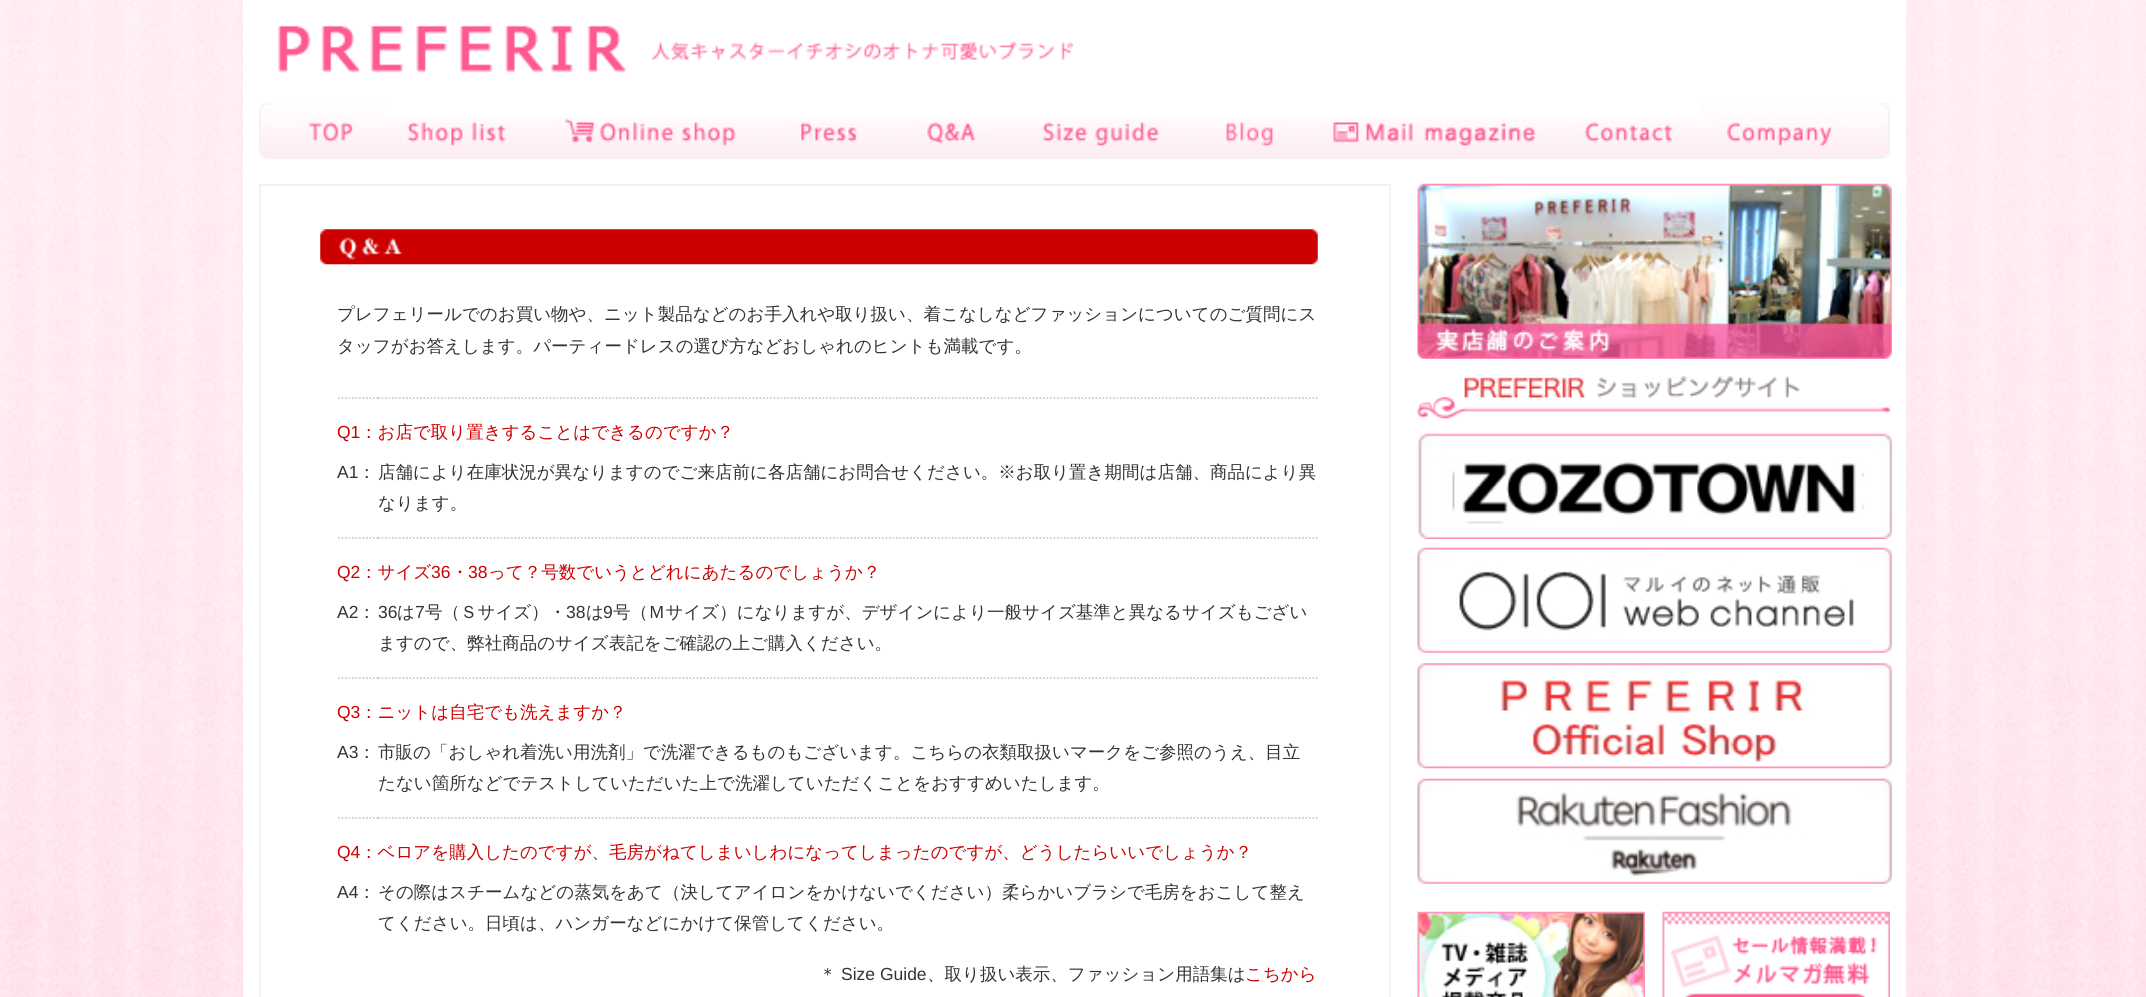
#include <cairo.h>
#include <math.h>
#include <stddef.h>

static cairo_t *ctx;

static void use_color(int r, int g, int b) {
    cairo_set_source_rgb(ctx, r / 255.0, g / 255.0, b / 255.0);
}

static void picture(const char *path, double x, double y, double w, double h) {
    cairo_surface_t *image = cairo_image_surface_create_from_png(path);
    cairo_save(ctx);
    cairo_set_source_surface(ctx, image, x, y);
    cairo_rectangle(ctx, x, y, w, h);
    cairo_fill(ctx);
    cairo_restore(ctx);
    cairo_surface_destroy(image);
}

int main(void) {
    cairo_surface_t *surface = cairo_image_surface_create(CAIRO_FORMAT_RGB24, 2146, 997);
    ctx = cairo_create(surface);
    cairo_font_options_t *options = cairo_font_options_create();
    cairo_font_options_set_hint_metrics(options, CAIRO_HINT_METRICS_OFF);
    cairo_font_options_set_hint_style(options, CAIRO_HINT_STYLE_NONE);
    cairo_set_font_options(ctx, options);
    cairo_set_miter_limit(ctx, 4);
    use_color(255, 255, 255);
    cairo_paint(ctx);
    picture("img1.png", 0, 0, 2146, 997);
    use_color(255, 255, 255);
    cairo_rectangle(ctx, 243, 0, 1663, 997);
    cairo_fill(ctx);
    picture("img2.png", 277, 25, 797, 48);
    picture("img3.png", 259, 103, 126, 56);
    picture("img4.png", 385, 116, 153, 43);
    picture("img5.png", 537, 117, 230, 42);
    picture("img6.png", 766, 117, 129, 42);
    picture("img7.png", 894, 117, 121, 42);
    picture("img8.png", 1015, 117, 174, 42);
    picture("img9.png", 1188, 117, 116, 42);
    picture("img10.png", 1304, 117, 257, 42);
    picture("img11.png", 1561, 116, 139, 43);
    picture("img12.png", 1699, 103, 191, 56);
    cairo_rectangle(ctx, 260, 185, 1130, 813);
    use_color(242, 242, 242);
    cairo_stroke(ctx);
    picture("img13.png", 320, 229, 998, 36);
    cairo_select_font_face(ctx, "WenQuanYi Zen Hei Medium", CAIRO_FONT_SLANT_NORMAL, CAIRO_FONT_WEIGHT_NORMAL);
    cairo_set_font_size(ctx, 17.5);
    use_color(51, 51, 51);
    cairo_move_to(ctx, 337, 320);
    cairo_show_text(ctx, "プレフェリールでのお買い物や、ニット製品などのお手入れや取り扱い、着こなしなどファッションについてのご質問にス");
    cairo_move_to(ctx, 337, 352);
    cairo_show_text(ctx, "タッフがお答えします。パーティードレスの選び方などおしゃれのヒントも満載です。");
    cairo_new_path(ctx);
    cairo_move_to(ctx, 378, 398);
    cairo_line_to(ctx, 1318, 398);
    use_color(204, 204, 204);
    cairo_set_line_width(ctx, 1.8);
    cairo_set_dash(ctx, (double[]){1.75, 1.75}, 2, 0);
    cairo_stroke(ctx);
    cairo_new_path(ctx);
    cairo_move_to(ctx, 338, 398);
    cairo_line_to(ctx, 378, 398);
    cairo_stroke(ctx);
    cairo_select_font_face(ctx, "Liberation Sans", CAIRO_FONT_SLANT_NORMAL, CAIRO_FONT_WEIGHT_NORMAL);
    use_color(204, 0, 0);
    cairo_move_to(ctx, 337, 438);
    cairo_show_text(ctx, "Q1");
    cairo_select_font_face(ctx, "WenQuanYi Zen Hei Medium", CAIRO_FONT_SLANT_NORMAL, CAIRO_FONT_WEIGHT_NORMAL);
    cairo_move_to(ctx, 360, 438);
    cairo_show_text(ctx, "：お店で取り置きすることはできるのですか？");
    cairo_select_font_face(ctx, "Liberation Sans", CAIRO_FONT_SLANT_NORMAL, CAIRO_FONT_WEIGHT_NORMAL);
    use_color(51, 51, 51);
    cairo_move_to(ctx, 337, 478);
    cairo_show_text(ctx, "A1");
    cairo_select_font_face(ctx, "WenQuanYi Zen Hei Medium", CAIRO_FONT_SLANT_NORMAL, CAIRO_FONT_WEIGHT_NORMAL);
    cairo_move_to(ctx, 358, 478);
    cairo_show_text(ctx, "：");
    cairo_move_to(ctx, 378, 478);
    cairo_show_text(ctx, "店舗により在庫状況が異なりますのでご来店前に各店舗にお問合せください。※お取り置き期間は店舗、商品により異");
    cairo_move_to(ctx, 378, 509);
    cairo_show_text(ctx, "なります。");
    cairo_new_path(ctx);
    cairo_move_to(ctx, 338, 538);
    cairo_line_to(ctx, 378, 538);
    use_color(204, 204, 204);
    cairo_stroke(ctx);
    cairo_select_font_face(ctx, "Liberation Sans", CAIRO_FONT_SLANT_NORMAL, CAIRO_FONT_WEIGHT_NORMAL);
    use_color(204, 0, 0);
    cairo_move_to(ctx, 337, 578);
    cairo_show_text(ctx, "Q2");
    cairo_select_font_face(ctx, "WenQuanYi Zen Hei Medium", CAIRO_FONT_SLANT_NORMAL, CAIRO_FONT_WEIGHT_NORMAL);
    cairo_move_to(ctx, 360, 578);
    cairo_show_text(ctx, "：サイズ");
    cairo_new_path(ctx);
    cairo_move_to(ctx, 378, 538);
    cairo_line_to(ctx, 1318, 538);
    use_color(204, 204, 204);
    cairo_stroke(ctx);
    cairo_select_font_face(ctx, "Liberation Sans", CAIRO_FONT_SLANT_NORMAL, CAIRO_FONT_WEIGHT_NORMAL);
    use_color(204, 0, 0);
    cairo_move_to(ctx, 431, 578);
    cairo_show_text(ctx, "36");
    cairo_select_font_face(ctx, "WenQuanYi Zen Hei Medium", CAIRO_FONT_SLANT_NORMAL, CAIRO_FONT_WEIGHT_NORMAL);
    cairo_move_to(ctx, 451, 578);
    cairo_show_text(ctx, "・");
    cairo_select_font_face(ctx, "Liberation Sans", CAIRO_FONT_SLANT_NORMAL, CAIRO_FONT_WEIGHT_NORMAL);
    cairo_move_to(ctx, 468, 578);
    cairo_show_text(ctx, "38");
    cairo_select_font_face(ctx, "WenQuanYi Zen Hei Medium", CAIRO_FONT_SLANT_NORMAL, CAIRO_FONT_WEIGHT_NORMAL);
    cairo_move_to(ctx, 488, 578);
    cairo_show_text(ctx, "って？号数でいうとどれにあたるのでしょうか？");
    cairo_select_font_face(ctx, "Liberation Sans", CAIRO_FONT_SLANT_NORMAL, CAIRO_FONT_WEIGHT_NORMAL);
    use_color(51, 51, 51);
    cairo_move_to(ctx, 337, 618);
    cairo_show_text(ctx, "A2");
    cairo_select_font_face(ctx, "WenQuanYi Zen Hei Medium", CAIRO_FONT_SLANT_NORMAL, CAIRO_FONT_WEIGHT_NORMAL);
    cairo_move_to(ctx, 358, 618);
    cairo_show_text(ctx, "：");
    cairo_select_font_face(ctx, "Liberation Sans", CAIRO_FONT_SLANT_NORMAL, CAIRO_FONT_WEIGHT_NORMAL);
    cairo_move_to(ctx, 378, 618);
    cairo_show_text(ctx, "36");
    cairo_select_font_face(ctx, "WenQuanYi Zen Hei Medium", CAIRO_FONT_SLANT_NORMAL, CAIRO_FONT_WEIGHT_NORMAL);
    cairo_move_to(ctx, 397, 618);
    cairo_show_text(ctx, "は");
    cairo_select_font_face(ctx, "Liberation Sans", CAIRO_FONT_SLANT_NORMAL, CAIRO_FONT_WEIGHT_NORMAL);
    cairo_move_to(ctx, 415, 618);
    cairo_show_text(ctx, "7");
    cairo_select_font_face(ctx, "WenQuanYi Zen Hei Medium", CAIRO_FONT_SLANT_NORMAL, CAIRO_FONT_WEIGHT_NORMAL);
    cairo_move_to(ctx, 425, 618);
    cairo_show_text(ctx, "号（Ｓサイズ）・");
    cairo_select_font_face(ctx, "Liberation Sans", CAIRO_FONT_SLANT_NORMAL, CAIRO_FONT_WEIGHT_NORMAL);
    cairo_move_to(ctx, 566, 618);
    cairo_show_text(ctx, "38");
    cairo_select_font_face(ctx, "WenQuanYi Zen Hei Medium", CAIRO_FONT_SLANT_NORMAL, CAIRO_FONT_WEIGHT_NORMAL);
    cairo_move_to(ctx, 586, 618);
    cairo_show_text(ctx, "は");
    cairo_select_font_face(ctx, "Liberation Sans", CAIRO_FONT_SLANT_NORMAL, CAIRO_FONT_WEIGHT_NORMAL);
    cairo_move_to(ctx, 603, 618);
    cairo_show_text(ctx, "9");
    cairo_select_font_face(ctx, "WenQuanYi Zen Hei Medium", CAIRO_FONT_SLANT_NORMAL, CAIRO_FONT_WEIGHT_NORMAL);
    cairo_move_to(ctx, 613, 618);
    cairo_show_text(ctx, "号（Ｍサイズ）になりますが、デザインにより一般サイズ基準と異なるサイズもござい");
    cairo_move_to(ctx, 378, 649);
    cairo_show_text(ctx, "ますので、弊社商品のサイズ表記をご確認の上ご購入ください。");
    cairo_new_path(ctx);
    cairo_move_to(ctx, 378, 678);
    cairo_line_to(ctx, 1318, 678);
    use_color(204, 204, 204);
    cairo_stroke(ctx);
    cairo_new_path(ctx);
    cairo_move_to(ctx, 338, 678);
    cairo_line_to(ctx, 378, 678);
    cairo_stroke(ctx);
    cairo_select_font_face(ctx, "Liberation Sans", CAIRO_FONT_SLANT_NORMAL, CAIRO_FONT_WEIGHT_NORMAL);
    use_color(204, 0, 0);
    cairo_move_to(ctx, 337, 718);
    cairo_show_text(ctx, "Q3");
    cairo_select_font_face(ctx, "WenQuanYi Zen Hei Medium", CAIRO_FONT_SLANT_NORMAL, CAIRO_FONT_WEIGHT_NORMAL);
    cairo_move_to(ctx, 360, 718);
    cairo_show_text(ctx, "：ニットは自宅でも洗えますか？");
    cairo_select_font_face(ctx, "Liberation Sans", CAIRO_FONT_SLANT_NORMAL, CAIRO_FONT_WEIGHT_NORMAL);
    use_color(51, 51, 51);
    cairo_move_to(ctx, 337, 758);
    cairo_show_text(ctx, "A3");
    cairo_select_font_face(ctx, "WenQuanYi Zen Hei Medium", CAIRO_FONT_SLANT_NORMAL, CAIRO_FONT_WEIGHT_NORMAL);
    cairo_move_to(ctx, 358, 758);
    cairo_show_text(ctx, "：");
    cairo_move_to(ctx, 378, 758);
    cairo_show_text(ctx, "市販の「おしゃれ着洗い用洗剤」で洗濯できるものもございます。こちらの衣類取扱いマークをご参照のうえ、目立");
    cairo_move_to(ctx, 378, 789);
    cairo_show_text(ctx, "たない箇所などでテストしていただいた上で洗濯していただくことをおすすめいたします。");
    cairo_new_path(ctx);
    cairo_move_to(ctx, 378, 818);
    cairo_line_to(ctx, 1318, 818);
    use_color(204, 204, 204);
    cairo_stroke(ctx);
    cairo_new_path(ctx);
    cairo_move_to(ctx, 338, 818);
    cairo_line_to(ctx, 378, 818);
    cairo_stroke(ctx);
    cairo_select_font_face(ctx, "Liberation Sans", CAIRO_FONT_SLANT_NORMAL, CAIRO_FONT_WEIGHT_NORMAL);
    use_color(204, 0, 0);
    cairo_move_to(ctx, 337, 858);
    cairo_show_text(ctx, "Q4");
    cairo_select_font_face(ctx, "WenQuanYi Zen Hei Medium", CAIRO_FONT_SLANT_NORMAL, CAIRO_FONT_WEIGHT_NORMAL);
    cairo_move_to(ctx, 360, 858);
    cairo_show_text(ctx, "：ベロアを購入したのですが、毛房がねてしまいしわになってしまったのですが、どうしたらいいでしょうか？");
    cairo_select_font_face(ctx, "Liberation Sans", CAIRO_FONT_SLANT_NORMAL, CAIRO_FONT_WEIGHT_NORMAL);
    use_color(51, 51, 51);
    cairo_move_to(ctx, 337, 898);
    cairo_show_text(ctx, "A4");
    cairo_select_font_face(ctx, "WenQuanYi Zen Hei Medium", CAIRO_FONT_SLANT_NORMAL, CAIRO_FONT_WEIGHT_NORMAL);
    cairo_move_to(ctx, 358, 898);
    cairo_show_text(ctx, "：");
    cairo_move_to(ctx, 378, 898);
    cairo_show_text(ctx, "その際はスチームなどの蒸気をあて（決してアイロンをかけないでください）柔らかいブラシで毛房をおこして整え");
    cairo_move_to(ctx, 378, 929);
    cairo_show_text(ctx, "てください。日頃は、ハンガーなどにかけて保管してください。");
    cairo_move_to(ctx, 819, 980);
    cairo_show_text(ctx, "＊");
    cairo_select_font_face(ctx, "Liberation Sans", CAIRO_FONT_SLANT_NORMAL, CAIRO_FONT_WEIGHT_NORMAL);
    cairo_move_to(ctx, 841, 980);
    cairo_show_text(ctx, "Size Guide");
    cairo_select_font_face(ctx, "WenQuanYi Zen Hei Medium", CAIRO_FONT_SLANT_NORMAL, CAIRO_FONT_WEIGHT_NORMAL);
    cairo_move_to(ctx, 927, 980);
    cairo_show_text(ctx, "、取り扱い表示、ファッション用語集は");
    use_color(204, 0, 0);
    cairo_move_to(ctx, 1245, 980);
    cairo_show_text(ctx, "こちから");
    picture("img14.png", 1417, 183, 475, 176);
    picture("img15.png", 1417, 376, 473, 43);
    picture("img16.png", 1417, 433, 475, 106);
    picture("img17.png", 1417, 547, 475, 106);
    picture("img18.png", 1417, 663, 475, 106);
    picture("img19.png", 1417, 778, 475, 106);
    picture("img20.png", 1417, 911, 228, 86);
    picture("img21.png", 1662, 911, 228, 86);
    cairo_surface_write_to_png(surface, "result.png");
    cairo_font_options_destroy(options);
    cairo_destroy(ctx);
    cairo_surface_destroy(surface);
    return 0;
}
